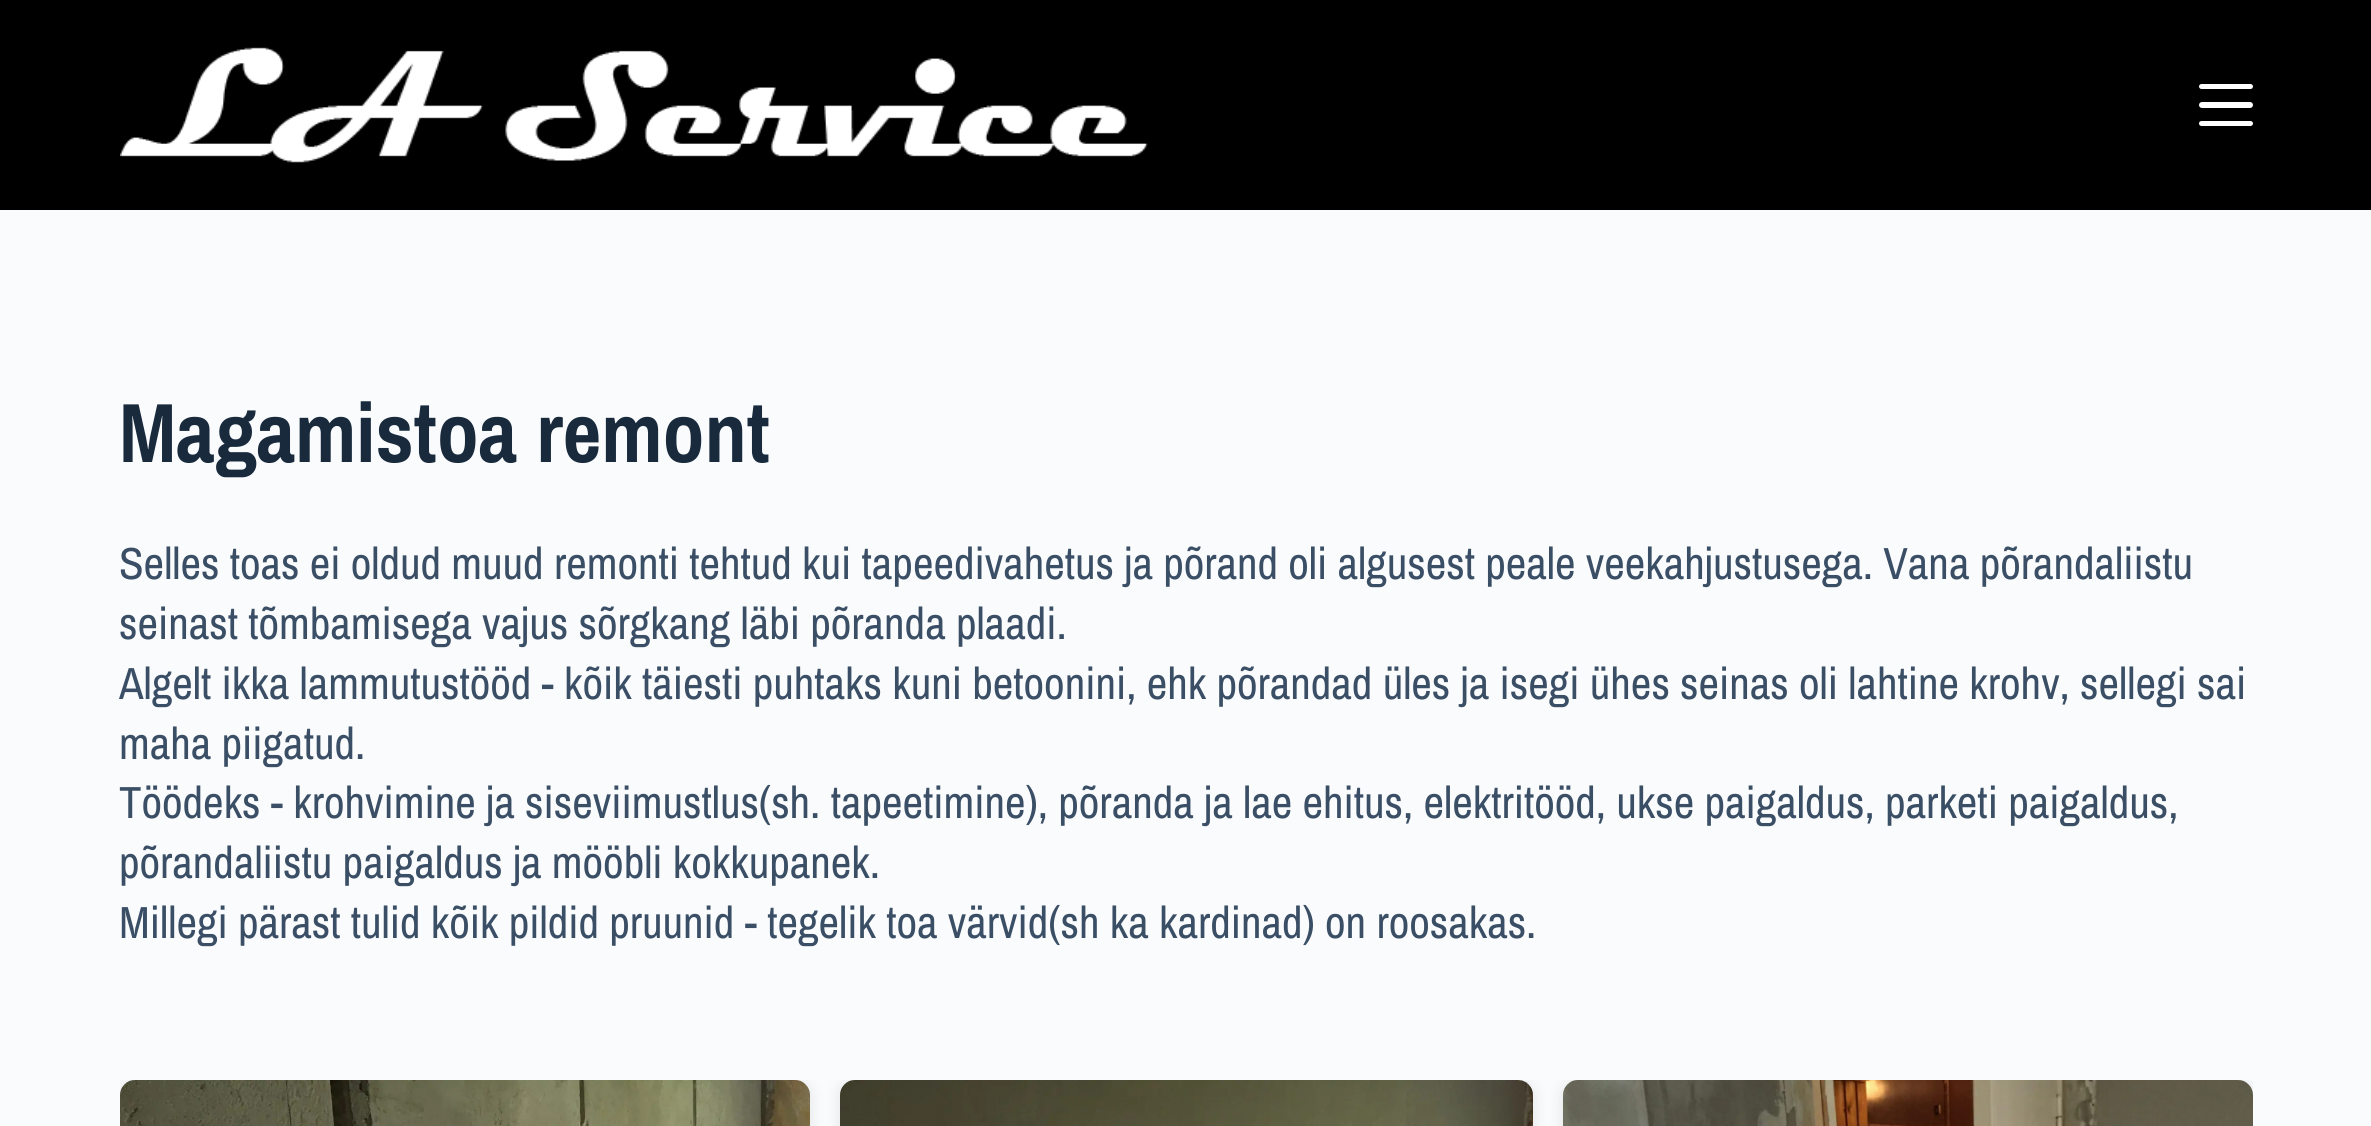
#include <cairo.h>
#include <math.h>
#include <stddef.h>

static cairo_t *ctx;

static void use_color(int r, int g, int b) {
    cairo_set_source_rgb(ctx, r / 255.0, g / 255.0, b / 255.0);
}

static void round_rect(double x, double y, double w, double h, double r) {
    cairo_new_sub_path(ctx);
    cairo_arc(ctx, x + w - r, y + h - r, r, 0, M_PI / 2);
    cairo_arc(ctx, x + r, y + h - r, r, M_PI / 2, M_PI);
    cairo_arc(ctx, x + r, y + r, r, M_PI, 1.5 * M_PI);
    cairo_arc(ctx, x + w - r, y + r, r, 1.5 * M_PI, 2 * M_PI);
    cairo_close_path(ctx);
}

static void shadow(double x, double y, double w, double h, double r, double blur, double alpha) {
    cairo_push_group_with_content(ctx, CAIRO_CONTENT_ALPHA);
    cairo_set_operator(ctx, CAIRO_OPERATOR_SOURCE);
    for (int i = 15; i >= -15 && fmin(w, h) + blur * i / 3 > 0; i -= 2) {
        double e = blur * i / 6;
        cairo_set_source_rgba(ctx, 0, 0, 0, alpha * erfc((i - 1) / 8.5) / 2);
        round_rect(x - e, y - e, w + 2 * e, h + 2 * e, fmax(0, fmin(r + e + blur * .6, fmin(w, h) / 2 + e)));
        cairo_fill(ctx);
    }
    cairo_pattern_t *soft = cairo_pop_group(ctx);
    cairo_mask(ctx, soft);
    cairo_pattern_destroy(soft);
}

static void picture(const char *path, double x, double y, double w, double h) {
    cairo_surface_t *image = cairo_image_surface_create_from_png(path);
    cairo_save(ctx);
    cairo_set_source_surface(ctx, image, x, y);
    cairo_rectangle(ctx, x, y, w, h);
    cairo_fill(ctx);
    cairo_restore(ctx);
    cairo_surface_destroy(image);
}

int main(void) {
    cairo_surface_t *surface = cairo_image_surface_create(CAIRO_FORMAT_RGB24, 2371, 1126);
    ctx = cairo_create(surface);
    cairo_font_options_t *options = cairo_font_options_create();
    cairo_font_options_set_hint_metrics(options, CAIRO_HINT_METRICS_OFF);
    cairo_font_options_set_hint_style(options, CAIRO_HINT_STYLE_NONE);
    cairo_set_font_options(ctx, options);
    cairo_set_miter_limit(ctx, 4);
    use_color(250, 251, 252);
    cairo_paint(ctx);
    use_color(0, 0, 0);
    cairo_rectangle(ctx, 0, 0, 2371, 210);
    cairo_fill(ctx);
    picture("img1.png", 120, 47, 1028, 116);
    use_color(255, 255, 255);
    round_rect(2199, 84, 54, 5, 2.5);
    cairo_fill(ctx);
    round_rect(2199, 102, 54, 6, 3);
    cairo_fill(ctx);
    round_rect(2199, 121, 54, 5, 2.5);
    cairo_fill(ctx);
    cairo_select_font_face(ctx, "Archivo Narrow", CAIRO_FONT_SLANT_NORMAL, CAIRO_FONT_WEIGHT_BOLD);
    cairo_set_font_size(ctx, 84);
    use_color(25, 42, 61);
    cairo_move_to(ctx, 119, 462);
    cairo_show_text(ctx, "Magamistoa remont");
    cairo_select_font_face(ctx, "Archivo Narrow", CAIRO_FONT_SLANT_NORMAL, CAIRO_FONT_WEIGHT_NORMAL);
    cairo_set_font_size(ctx, 45);
    use_color(58, 79, 102);
    cairo_move_to(ctx, 119, 579);
    cairo_show_text(ctx, "Selles toas ei oldud muud remonti tehtud kui tapeedivahetus ja põrand oli algusest peale veekahjustusega. Vana põrandaliistu");
    cairo_move_to(ctx, 119, 639);
    cairo_show_text(ctx, "seinast tõmbamisega vajus sõrgkang läbi põranda plaadi.");
    cairo_move_to(ctx, 119, 699);
    cairo_show_text(ctx, "Algelt ikka lammutustööd - kõik täiesti puhtaks kuni betoonini, ehk põrandad üles ja isegi ühes seinas oli lahtine krohv, sellegi sai");
    cairo_move_to(ctx, 119, 759);
    cairo_show_text(ctx, "maha piigatud.");
    cairo_move_to(ctx, 119, 818);
    cairo_show_text(ctx, "Töödeks - krohvimine ja siseviimustlus(sh. tapeetimine), põranda ja lae ehitus, elektritööd, ukse paigaldus, parketi paigaldus,");
    cairo_move_to(ctx, 119, 878);
    cairo_show_text(ctx, "põrandaliistu paigaldus ja mööbli kokkupanek.");
    cairo_move_to(ctx, 119, 938);
    cairo_show_text(ctx, "Millegi pärast tulid kõik pildid pruunid - tegelik toa värvid(sh ka kardinad) on roosakas.");
    cairo_save(ctx);
    cairo_rectangle(ctx, 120, 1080, 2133, 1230);
    cairo_clip(ctx);
    use_color(0, 0, 0);
    shadow(120, 1080, 690, 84, 15, 7.5, 0.1);
    cairo_restore(ctx);
    picture("img2.png", 120, 1080, 690, 46);
    cairo_save(ctx);
    cairo_rectangle(ctx, 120, 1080, 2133, 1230);
    cairo_clip(ctx);
    use_color(0, 0, 0);
    shadow(840, 1080, 693, 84, 15, 7.5, 0.1);
    cairo_restore(ctx);
    picture("img3.png", 840, 1080, 693, 46);
    cairo_save(ctx);
    cairo_rectangle(ctx, 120, 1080, 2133, 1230);
    cairo_clip(ctx);
    use_color(0, 0, 0);
    shadow(1563, 1080, 690, 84, 15, 7.5, 0.1);
    cairo_restore(ctx);
    picture("img4.png", 1563, 1080, 690, 46);
    cairo_surface_write_to_png(surface, "result.png");
    cairo_font_options_destroy(options);
    cairo_destroy(ctx);
    cairo_surface_destroy(surface);
    return 0;
}
